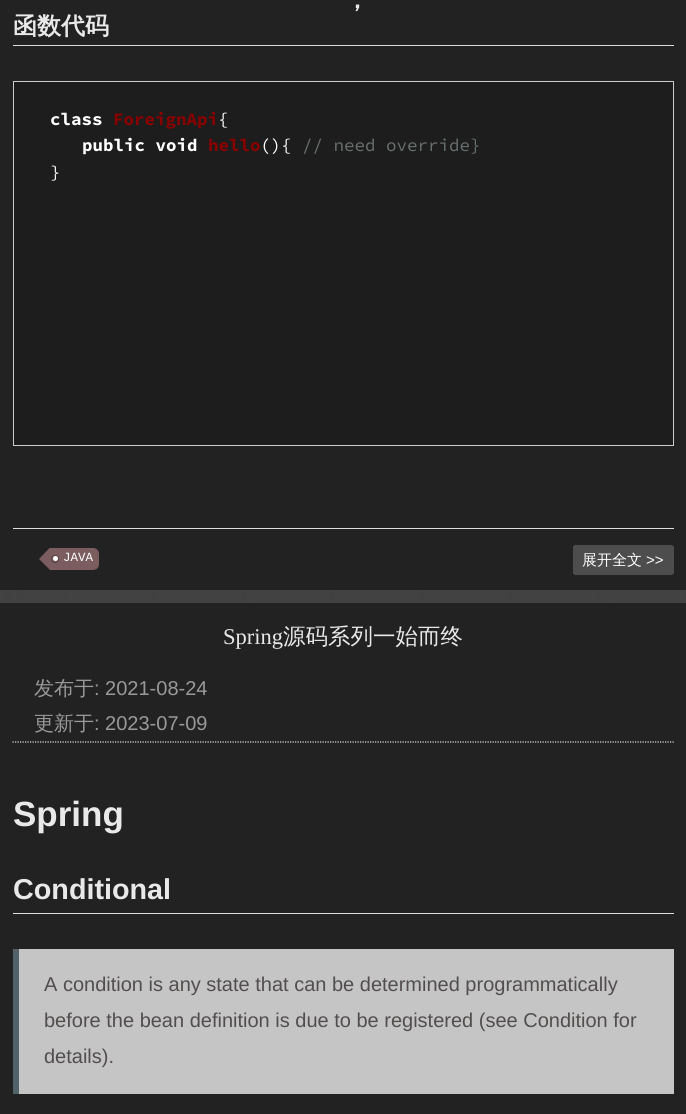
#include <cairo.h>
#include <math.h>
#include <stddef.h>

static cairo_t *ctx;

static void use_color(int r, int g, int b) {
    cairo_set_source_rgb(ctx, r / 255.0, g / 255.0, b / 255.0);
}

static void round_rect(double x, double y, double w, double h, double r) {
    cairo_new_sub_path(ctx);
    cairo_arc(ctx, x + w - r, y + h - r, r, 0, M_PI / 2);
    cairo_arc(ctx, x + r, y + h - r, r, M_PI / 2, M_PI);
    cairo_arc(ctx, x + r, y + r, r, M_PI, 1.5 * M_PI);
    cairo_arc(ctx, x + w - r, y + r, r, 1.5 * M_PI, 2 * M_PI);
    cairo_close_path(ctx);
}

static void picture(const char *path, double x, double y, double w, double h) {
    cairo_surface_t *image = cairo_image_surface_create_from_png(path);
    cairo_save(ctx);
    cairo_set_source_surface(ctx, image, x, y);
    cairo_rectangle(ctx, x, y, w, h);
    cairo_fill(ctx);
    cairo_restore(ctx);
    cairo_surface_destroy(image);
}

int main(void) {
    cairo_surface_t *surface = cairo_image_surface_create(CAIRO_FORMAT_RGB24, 686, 1114);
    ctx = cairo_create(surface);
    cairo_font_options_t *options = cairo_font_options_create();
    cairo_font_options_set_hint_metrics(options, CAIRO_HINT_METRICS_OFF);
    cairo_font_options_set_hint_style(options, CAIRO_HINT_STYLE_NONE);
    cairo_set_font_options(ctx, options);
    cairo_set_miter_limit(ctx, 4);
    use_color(255, 255, 255);
    cairo_paint(ctx);
    picture("img1.png", 0, 590, 686, 13);
    use_color(34, 34, 34);
    cairo_rectangle(ctx, 0, 0, 686, 590);
    cairo_fill(ctx);
    use_color(221, 221, 221);
    cairo_rectangle(ctx, 13, 45, 661, 1);
    cairo_fill(ctx);
    cairo_select_font_face(ctx, "WenQuanYi Zen Hei", CAIRO_FONT_SLANT_NORMAL, CAIRO_FONT_WEIGHT_BOLD);
    cairo_set_font_size(ctx, 24);
    use_color(233, 233, 233);
    cairo_move_to(ctx, 345, 8);
    cairo_show_text(ctx, "，");
    cairo_move_to(ctx, 13, 34);
    cairo_show_text(ctx, "函数代码");
    use_color(30, 29, 29);
    cairo_rectangle(ctx, 13.5, 81.5, 660, 364);
    cairo_fill_preserve(ctx);
    use_color(204, 204, 204);
    cairo_set_line_width(ctx, 1);
    cairo_stroke(ctx);
    cairo_select_font_face(ctx, "Source Code Pro", CAIRO_FONT_SLANT_NORMAL, CAIRO_FONT_WEIGHT_BOLD);
    cairo_set_font_size(ctx, 17.5);
    use_color(255, 255, 255);
    cairo_move_to(ctx, 50, 125);
    cairo_show_text(ctx, "class");
    use_color(136, 0, 0);
    cairo_move_to(ctx, 113, 125);
    cairo_show_text(ctx, "ForeignApi");
    cairo_select_font_face(ctx, "Source Code Pro", CAIRO_FONT_SLANT_NORMAL, CAIRO_FONT_WEIGHT_NORMAL);
    use_color(255, 255, 255);
    cairo_move_to(ctx, 218, 125);
    cairo_show_text(ctx, "{");
    cairo_select_font_face(ctx, "Source Code Pro", CAIRO_FONT_SLANT_NORMAL, CAIRO_FONT_WEIGHT_BOLD);
    cairo_move_to(ctx, 82, 151);
    cairo_show_text(ctx, "public void");
    use_color(136, 0, 0);
    cairo_move_to(ctx, 208, 151);
    cairo_show_text(ctx, "hello");
    cairo_select_font_face(ctx, "Source Code Pro", CAIRO_FONT_SLANT_NORMAL, CAIRO_FONT_WEIGHT_NORMAL);
    use_color(255, 255, 255);
    cairo_move_to(ctx, 260, 151);
    cairo_show_text(ctx, "(){");
    use_color(105, 112, 112);
    cairo_move_to(ctx, 302, 151);
    cairo_show_text(ctx, "// need override}");
    use_color(255, 255, 255);
    cairo_move_to(ctx, 50, 178);
    cairo_show_text(ctx, "}");
    use_color(221, 221, 221);
    cairo_rectangle(ctx, 13, 528, 661, 1);
    cairo_fill(ctx);
    use_color(123, 93, 95);
    cairo_new_path(ctx);
    cairo_move_to(ctx, 50, 548);
    cairo_line_to(ctx, 93, 548);
    cairo_curve_to(ctx, 96.5, 548, 99, 550.5, 99, 554);
    cairo_line_to(ctx, 99, 564);
    cairo_curve_to(ctx, 99, 567.5, 96.5, 570, 93, 570);
    cairo_line_to(ctx, 50, 570);
    cairo_close_path(ctx);
    cairo_fill(ctx);
    cairo_new_path(ctx);
    cairo_move_to(ctx, 50, 547.5);
    cairo_line_to(ctx, 50, 570);
    cairo_line_to(ctx, 39, 559);
    cairo_close_path(ctx);
    cairo_fill(ctx);
    cairo_arc(ctx, 55, 559, 3.5, 0, 2 * M_PI);
    use_color(86, 65, 67);
    cairo_stroke(ctx);
    use_color(255, 255, 255);
    cairo_arc(ctx, 55.5, 558.5, 2.5, 0, 2 * M_PI);
    cairo_fill(ctx);
    cairo_select_font_face(ctx, "Liberation Mono", CAIRO_FONT_SLANT_NORMAL, CAIRO_FONT_WEIGHT_NORMAL);
    cairo_set_font_size(ctx, 12.5);
    cairo_move_to(ctx, 63, 561);
    cairo_show_text(ctx, "JAVA");
    use_color(77, 77, 77);
    round_rect(573, 545, 101, 30, 2.5);
    cairo_fill(ctx);
    cairo_select_font_face(ctx, "WenQuanYi Zen Hei Medium", CAIRO_FONT_SLANT_NORMAL, CAIRO_FONT_WEIGHT_NORMAL);
    cairo_set_font_size(ctx, 15);
    use_color(255, 255, 255);
    cairo_move_to(ctx, 582, 565);
    cairo_show_text(ctx, "展开全文");
    cairo_select_font_face(ctx, "Liberation Sans", CAIRO_FONT_SLANT_NORMAL, CAIRO_FONT_WEIGHT_NORMAL);
    cairo_move_to(ctx, 646, 565);
    cairo_show_text(ctx, ">>");
    use_color(34, 34, 34);
    cairo_rectangle(ctx, 0, 603, 686, 511);
    cairo_fill(ctx);
    cairo_new_path(ctx);
    cairo_move_to(ctx, 12.5, 742);
    cairo_line_to(ctx, 674, 742);
    use_color(221, 221, 221);
    cairo_set_line_width(ctx, 1.2);
    cairo_set_dash(ctx, (double[]){1.25, 1.25}, 2, 0);
    cairo_stroke(ctx);
    cairo_select_font_face(ctx, "Liberation Serif", CAIRO_FONT_SLANT_NORMAL, CAIRO_FONT_WEIGHT_NORMAL);
    cairo_set_font_size(ctx, 22.5);
    use_color(233, 233, 233);
    cairo_move_to(ctx, 223, 644);
    cairo_show_text(ctx, "Spring");
    cairo_select_font_face(ctx, "WenQuanYi Zen Hei Medium", CAIRO_FONT_SLANT_NORMAL, CAIRO_FONT_WEIGHT_NORMAL);
    cairo_move_to(ctx, 283, 644);
    cairo_show_text(ctx, "源码系列一始而终");
    cairo_set_font_size(ctx, 20);
    use_color(153, 153, 153);
    cairo_move_to(ctx, 34, 695);
    cairo_show_text(ctx, "发布于");
    cairo_select_font_face(ctx, "Liberation Sans", CAIRO_FONT_SLANT_NORMAL, CAIRO_FONT_WEIGHT_NORMAL);
    cairo_move_to(ctx, 94, 695);
    cairo_show_text(ctx, ": 2021-08-24");
    cairo_select_font_face(ctx, "WenQuanYi Zen Hei Medium", CAIRO_FONT_SLANT_NORMAL, CAIRO_FONT_WEIGHT_NORMAL);
    cairo_move_to(ctx, 34, 730);
    cairo_show_text(ctx, "更新于");
    cairo_select_font_face(ctx, "Liberation Sans", CAIRO_FONT_SLANT_NORMAL, CAIRO_FONT_WEIGHT_NORMAL);
    cairo_move_to(ctx, 94, 730);
    cairo_show_text(ctx, ": 2023-07-09");
    cairo_select_font_face(ctx, "Liberation Sans", CAIRO_FONT_SLANT_NORMAL, CAIRO_FONT_WEIGHT_BOLD);
    cairo_set_font_size(ctx, 35);
    use_color(233, 233, 233);
    cairo_move_to(ctx, 13, 826);
    cairo_show_text(ctx, "Spring");
    use_color(221, 221, 221);
    cairo_rectangle(ctx, 13, 913, 661, 1);
    cairo_fill(ctx);
    cairo_set_font_size(ctx, 28.75);
    use_color(233, 233, 233);
    cairo_move_to(ctx, 13, 899);
    cairo_show_text(ctx, "Conditional");
    use_color(197, 197, 197);
    cairo_rectangle(ctx, 19, 949, 655, 145);
    cairo_fill(ctx);
    use_color(81, 98, 105);
    cairo_rectangle(ctx, 13, 949, 6, 145);
    cairo_fill(ctx);
    cairo_select_font_face(ctx, "Liberation Sans", CAIRO_FONT_SLANT_NORMAL, CAIRO_FONT_WEIGHT_NORMAL);
    cairo_set_font_size(ctx, 20);
    use_color(82, 78, 78);
    cairo_move_to(ctx, 44, 991);
    cairo_show_text(ctx, "A condition is any state that can be determined programmatically");
    cairo_move_to(ctx, 44, 1027);
    cairo_show_text(ctx, "before the bean definition is due to be registered (see Condition for");
    cairo_move_to(ctx, 44, 1063);
    cairo_show_text(ctx, "details).");
    cairo_surface_write_to_png(surface, "result.png");
    cairo_font_options_destroy(options);
    cairo_destroy(ctx);
    cairo_surface_destroy(surface);
    return 0;
}
